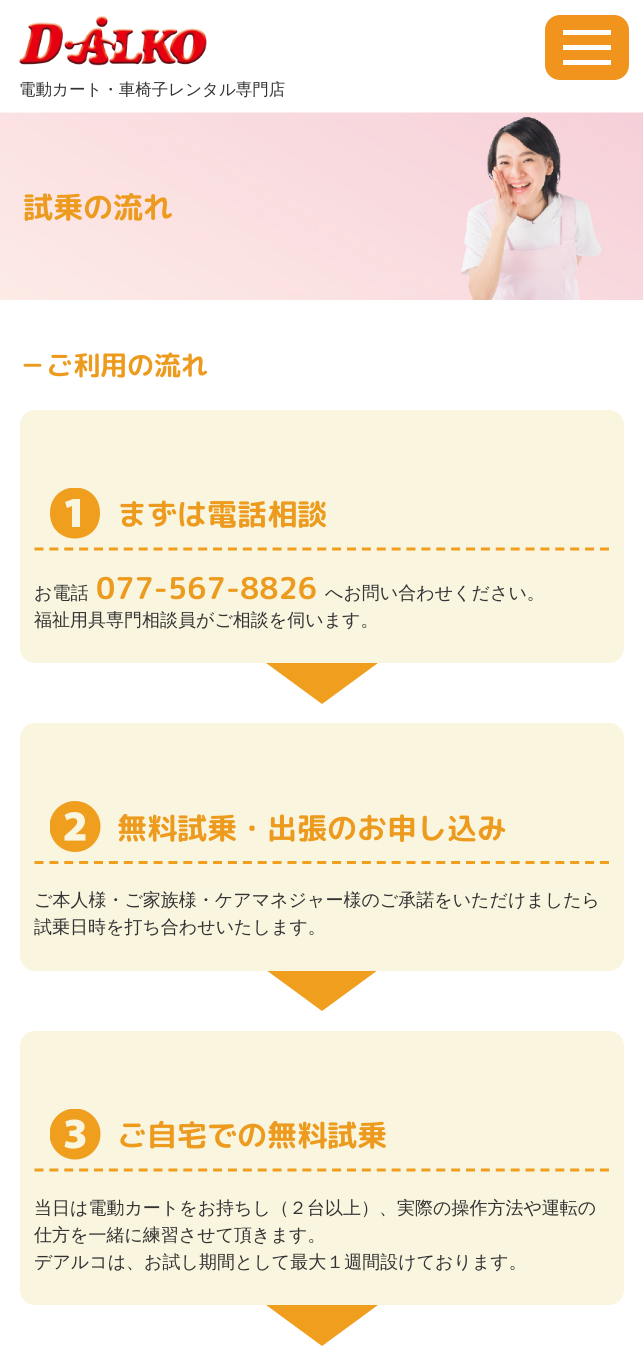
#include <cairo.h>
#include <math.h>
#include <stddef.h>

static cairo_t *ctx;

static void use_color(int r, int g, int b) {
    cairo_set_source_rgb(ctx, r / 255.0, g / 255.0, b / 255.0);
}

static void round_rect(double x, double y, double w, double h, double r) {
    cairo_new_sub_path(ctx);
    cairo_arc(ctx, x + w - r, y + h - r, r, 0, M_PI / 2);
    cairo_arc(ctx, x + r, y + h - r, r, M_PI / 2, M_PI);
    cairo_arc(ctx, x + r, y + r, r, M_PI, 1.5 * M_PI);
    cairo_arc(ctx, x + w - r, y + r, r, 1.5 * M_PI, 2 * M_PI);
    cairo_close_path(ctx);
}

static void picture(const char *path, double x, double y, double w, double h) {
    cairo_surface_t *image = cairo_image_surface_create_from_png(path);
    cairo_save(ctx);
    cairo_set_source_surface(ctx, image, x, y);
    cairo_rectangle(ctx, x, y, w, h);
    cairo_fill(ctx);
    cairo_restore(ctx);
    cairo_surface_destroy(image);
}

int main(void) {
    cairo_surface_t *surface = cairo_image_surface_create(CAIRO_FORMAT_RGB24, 643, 1361);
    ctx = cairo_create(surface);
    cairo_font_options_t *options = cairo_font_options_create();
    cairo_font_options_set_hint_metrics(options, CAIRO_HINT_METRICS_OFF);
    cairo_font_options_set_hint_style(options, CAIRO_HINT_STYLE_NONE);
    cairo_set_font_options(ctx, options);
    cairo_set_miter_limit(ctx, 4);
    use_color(255, 255, 255);
    cairo_paint(ctx);
    use_color(240, 148, 30);
    round_rect(545, 15, 84, 65, 15);
    cairo_fill(ctx);
    use_color(255, 255, 255);
    cairo_rectangle(ctx, 563, 45, 48, 5);
    cairo_fill(ctx);
    cairo_rectangle(ctx, 563, 30, 48, 5);
    cairo_fill(ctx);
    cairo_rectangle(ctx, 563, 60, 48, 5);
    cairo_fill(ctx);
    picture("img1.png", 19, 15, 188, 51);
    cairo_select_font_face(ctx, "WenQuanYi Zen Hei Medium", CAIRO_FONT_SLANT_NORMAL, CAIRO_FONT_WEIGHT_NORMAL);
    cairo_set_font_size(ctx, 16.5);
    use_color(51, 51, 51);
    cairo_move_to(ctx, 19, 95);
    cairo_show_text(ctx, "電動カート・車椅子レンタル専門店");
    picture("img2.png", 0, 112, 643, 188);
    cairo_select_font_face(ctx, "Rounded Mplus 1c Bold", CAIRO_FONT_SLANT_NORMAL, CAIRO_FONT_WEIGHT_BOLD);
    cairo_set_font_size(ctx, 30);
    use_color(237, 155, 30);
    cairo_move_to(ctx, 23, 218);
    cairo_show_text(ctx, "試乗の流れ");
    cairo_set_font_size(ctx, 27);
    cairo_move_to(ctx, 19, 375);
    cairo_show_text(ctx, "－ご利用の流れ");
    use_color(249, 245, 223);
    round_rect(20, 410, 604, 253, 15);
    cairo_fill(ctx);
    cairo_save(ctx);
    cairo_rectangle(ctx, 50, 488, 51, 51);
    cairo_clip(ctx);
    use_color(240, 158, 30);
    cairo_new_path(ctx);
    cairo_move_to(ctx, 100, 513);
    cairo_curve_to(ctx, 100, 547, 50, 547, 50, 513);
    cairo_curve_to(ctx, 50, 479, 100, 479, 100, 513);
    cairo_close_path(ctx);
    cairo_move_to(ctx, 72, 527);
    cairo_line_to(ctx, 80, 527);
    cairo_line_to(ctx, 80, 499);
    cairo_line_to(ctx, 73, 499);
    cairo_line_to(ctx, 65, 502);
    cairo_line_to(ctx, 67, 508);
    cairo_line_to(ctx, 72, 506);
    cairo_close_path(ctx);
    cairo_fill(ctx);
    cairo_restore(ctx);
    cairo_new_path(ctx);
    cairo_move_to(ctx, 34.5, 549);
    cairo_line_to(ctx, 609, 549);
    use_color(240, 158, 30);
    cairo_set_line_width(ctx, 3);
    cairo_set_dash(ctx, (double[]){9, 5.88}, 2, 0);
    cairo_stroke(ctx);
    cairo_set_font_size(ctx, 30);
    use_color(237, 155, 30);
    cairo_move_to(ctx, 117, 525);
    cairo_show_text(ctx, "まずは電話相談");
    cairo_select_font_face(ctx, "WenQuanYi Zen Hei Medium", CAIRO_FONT_SLANT_NORMAL, CAIRO_FONT_WEIGHT_NORMAL);
    cairo_set_font_size(ctx, 18);
    use_color(51, 51, 51);
    cairo_move_to(ctx, 34, 599);
    cairo_show_text(ctx, "お電話");
    cairo_select_font_face(ctx, "Rounded Mplus 1c Bold", CAIRO_FONT_SLANT_NORMAL, CAIRO_FONT_WEIGHT_BOLD);
    cairo_set_font_size(ctx, 30);
    use_color(237, 155, 30);
    cairo_move_to(ctx, 96, 599);
    cairo_show_text(ctx, "077-567-8826");
    cairo_select_font_face(ctx, "WenQuanYi Zen Hei Medium", CAIRO_FONT_SLANT_NORMAL, CAIRO_FONT_WEIGHT_NORMAL);
    cairo_set_font_size(ctx, 18);
    use_color(51, 51, 51);
    cairo_move_to(ctx, 325, 599);
    cairo_show_text(ctx, "へお問い合わせください。");
    cairo_move_to(ctx, 34, 626);
    cairo_show_text(ctx, "福祉用具専門相談員がご相談を伺います。");
    use_color(240, 158, 30);
    cairo_new_path(ctx);
    cairo_move_to(ctx, 266, 663);
    cairo_line_to(ctx, 322, 704);
    cairo_line_to(ctx, 378, 663);
    cairo_close_path(ctx);
    cairo_fill(ctx);
    use_color(249, 245, 223);
    round_rect(20, 723, 604, 248, 15);
    cairo_fill(ctx);
    picture("img3.png", 50, 801, 51, 51);
    cairo_new_path(ctx);
    cairo_move_to(ctx, 34.5, 862.5);
    cairo_line_to(ctx, 609, 862.5);
    use_color(240, 158, 30);
    cairo_stroke(ctx);
    cairo_select_font_face(ctx, "Rounded Mplus 1c Bold", CAIRO_FONT_SLANT_NORMAL, CAIRO_FONT_WEIGHT_BOLD);
    cairo_set_font_size(ctx, 30);
    use_color(237, 155, 30);
    cairo_move_to(ctx, 117, 839);
    cairo_show_text(ctx, "無料試乗・出張のお申し込み");
    cairo_select_font_face(ctx, "WenQuanYi Zen Hei Medium", CAIRO_FONT_SLANT_NORMAL, CAIRO_FONT_WEIGHT_NORMAL);
    cairo_set_font_size(ctx, 18);
    use_color(51, 51, 51);
    cairo_move_to(ctx, 34, 906);
    cairo_show_text(ctx, "ご本人様・ご家族様・ケアマネジャー様のご承諾をいただけましたら");
    cairo_move_to(ctx, 34, 933);
    cairo_show_text(ctx, "試乗日時を打ち合わせいたします。");
    cairo_save(ctx);
    cairo_rectangle(ctx, 266, 971, 114, 40);
    cairo_clip(ctx);
    use_color(240, 158, 30);
    cairo_new_path(ctx);
    cairo_move_to(ctx, 266, 970);
    cairo_line_to(ctx, 322, 1011);
    cairo_line_to(ctx, 378, 970);
    cairo_close_path(ctx);
    cairo_fill(ctx);
    cairo_restore(ctx);
    use_color(249, 245, 223);
    round_rect(20, 1031, 604, 274, 15);
    cairo_fill(ctx);
    picture("img4.png", 50, 1109, 51, 51);
    cairo_new_path(ctx);
    cairo_move_to(ctx, 34.5, 1170);
    cairo_line_to(ctx, 609, 1170);
    use_color(240, 158, 30);
    cairo_stroke(ctx);
    cairo_select_font_face(ctx, "Rounded Mplus 1c Bold", CAIRO_FONT_SLANT_NORMAL, CAIRO_FONT_WEIGHT_BOLD);
    cairo_set_font_size(ctx, 30);
    use_color(237, 155, 30);
    cairo_move_to(ctx, 117, 1146);
    cairo_show_text(ctx, "ご自宅での無料試乗");
    cairo_select_font_face(ctx, "WenQuanYi Zen Hei Medium", CAIRO_FONT_SLANT_NORMAL, CAIRO_FONT_WEIGHT_NORMAL);
    cairo_set_font_size(ctx, 18);
    use_color(51, 51, 51);
    cairo_move_to(ctx, 34, 1214);
    cairo_show_text(ctx, "当日は電動カートをお持ちし（２台以上）、実際の操作方法や運転の");
    cairo_move_to(ctx, 34, 1241);
    cairo_show_text(ctx, "仕方を一緒に練習させて頂きます。");
    cairo_move_to(ctx, 34, 1268);
    cairo_show_text(ctx, "デアルコは、お試し期間として最大１週間設けております。");
    use_color(240, 158, 30);
    cairo_new_path(ctx);
    cairo_move_to(ctx, 266, 1305);
    cairo_line_to(ctx, 322, 1346);
    cairo_line_to(ctx, 378, 1305);
    cairo_close_path(ctx);
    cairo_fill(ctx);
    cairo_surface_write_to_png(surface, "result.png");
    cairo_font_options_destroy(options);
    cairo_destroy(ctx);
    cairo_surface_destroy(surface);
    return 0;
}
